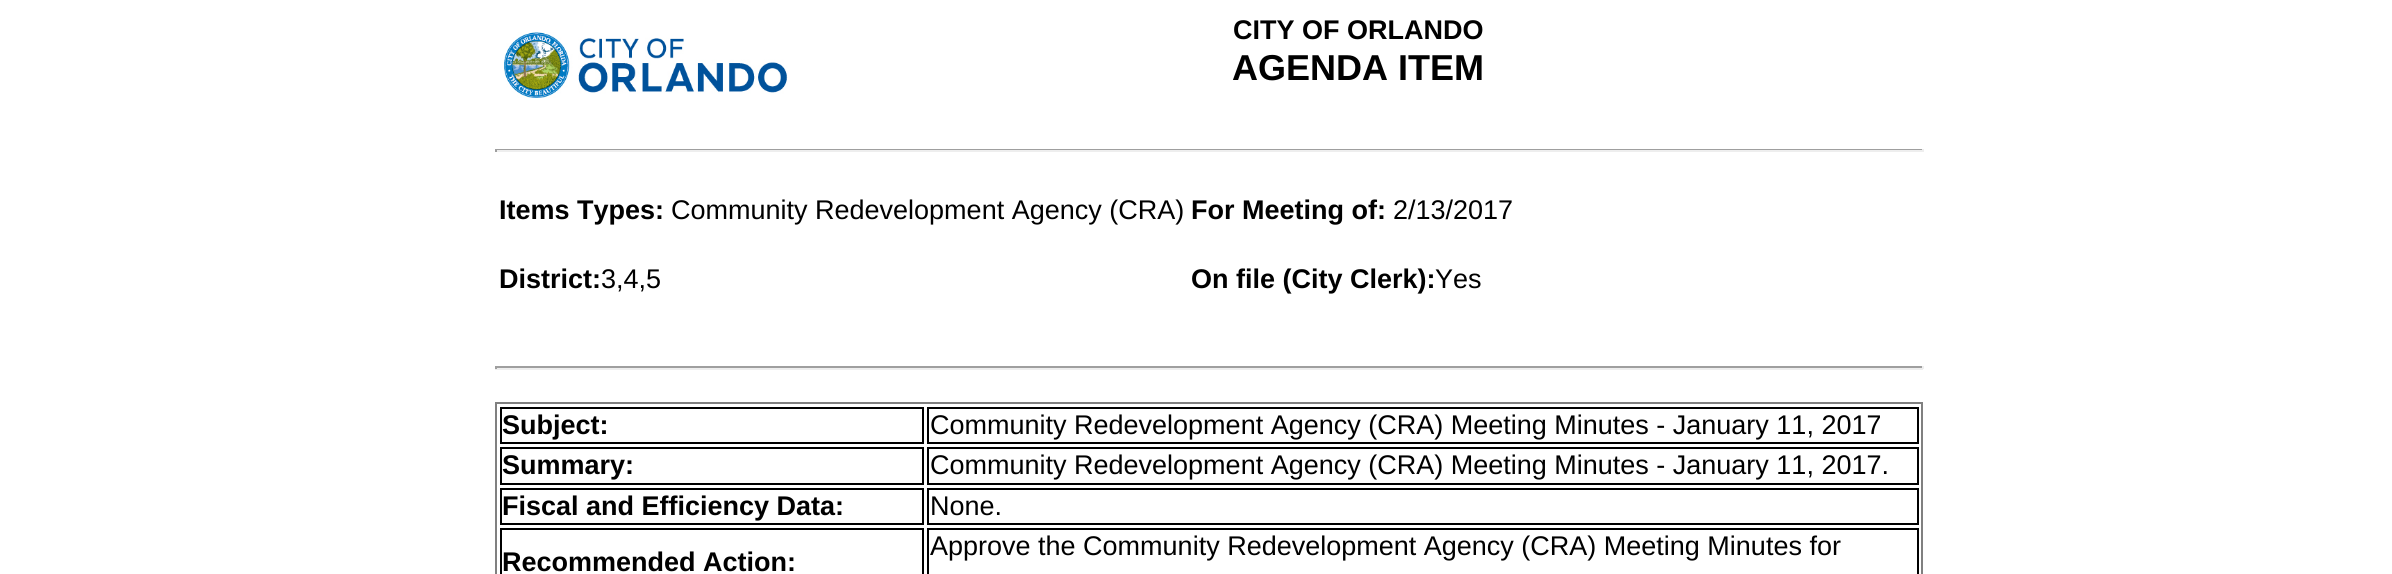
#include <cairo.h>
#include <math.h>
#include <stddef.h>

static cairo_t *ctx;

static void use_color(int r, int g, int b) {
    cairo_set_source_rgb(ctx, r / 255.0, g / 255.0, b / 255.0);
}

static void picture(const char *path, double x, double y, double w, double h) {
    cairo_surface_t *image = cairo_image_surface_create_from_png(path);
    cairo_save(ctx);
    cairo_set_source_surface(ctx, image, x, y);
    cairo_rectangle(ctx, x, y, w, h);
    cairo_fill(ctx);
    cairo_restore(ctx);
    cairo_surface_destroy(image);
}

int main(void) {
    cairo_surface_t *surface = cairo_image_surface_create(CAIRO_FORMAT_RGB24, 2392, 574);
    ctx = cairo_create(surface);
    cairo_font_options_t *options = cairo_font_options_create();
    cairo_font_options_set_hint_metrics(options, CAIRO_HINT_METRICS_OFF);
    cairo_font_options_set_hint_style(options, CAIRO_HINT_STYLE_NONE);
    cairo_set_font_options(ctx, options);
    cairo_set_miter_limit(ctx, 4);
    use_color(255, 255, 255);
    cairo_paint(ctx);
    picture("img1.png", 504, 32, 284, 66);
    cairo_select_font_face(ctx, "Liberation Sans", CAIRO_FONT_SLANT_NORMAL, CAIRO_FONT_WEIGHT_BOLD);
    cairo_set_font_size(ctx, 27);
    use_color(0, 0, 0);
    cairo_move_to(ctx, 1233, 39);
    cairo_show_text(ctx, "CITY OF ORLANDO");
    cairo_set_font_size(ctx, 36);
    cairo_move_to(ctx, 1232, 80);
    cairo_show_text(ctx, "AGENDA ITEM");
    use_color(159, 159, 159);
    cairo_rectangle(ctx, 495, 149, 1428, 1);
    cairo_fill(ctx);
    use_color(238, 238, 238);
    cairo_rectangle(ctx, 1922, 149, 2, 3);
    cairo_fill(ctx);
    cairo_rectangle(ctx, 495, 150, 1428, 2);
    cairo_fill(ctx);
    use_color(159, 159, 159);
    cairo_rectangle(ctx, 495, 149, 2, 3);
    cairo_fill(ctx);
    cairo_set_font_size(ctx, 27);
    use_color(0, 0, 0);
    cairo_move_to(ctx, 499, 219);
    cairo_show_text(ctx, "Items Types:");
    cairo_select_font_face(ctx, "Liberation Sans", CAIRO_FONT_SLANT_NORMAL, CAIRO_FONT_WEIGHT_NORMAL);
    cairo_move_to(ctx, 671, 219);
    cairo_show_text(ctx, "Community Redevelopment Agency (CRA)");
    cairo_select_font_face(ctx, "Liberation Sans", CAIRO_FONT_SLANT_NORMAL, CAIRO_FONT_WEIGHT_BOLD);
    cairo_move_to(ctx, 1191, 219);
    cairo_show_text(ctx, "For Meeting of:");
    cairo_select_font_face(ctx, "Liberation Sans", CAIRO_FONT_SLANT_NORMAL, CAIRO_FONT_WEIGHT_NORMAL);
    cairo_move_to(ctx, 1393, 219);
    cairo_show_text(ctx, "2/13/2017");
    cairo_select_font_face(ctx, "Liberation Sans", CAIRO_FONT_SLANT_NORMAL, CAIRO_FONT_WEIGHT_BOLD);
    cairo_move_to(ctx, 499, 288);
    cairo_show_text(ctx, "District:");
    cairo_select_font_face(ctx, "Liberation Sans", CAIRO_FONT_SLANT_NORMAL, CAIRO_FONT_WEIGHT_NORMAL);
    cairo_move_to(ctx, 601, 288);
    cairo_show_text(ctx, "3,4,5");
    cairo_select_font_face(ctx, "Liberation Sans", CAIRO_FONT_SLANT_NORMAL, CAIRO_FONT_WEIGHT_BOLD);
    cairo_move_to(ctx, 1191, 288);
    cairo_show_text(ctx, "On file (City Clerk):");
    cairo_select_font_face(ctx, "Liberation Sans", CAIRO_FONT_SLANT_NORMAL, CAIRO_FONT_WEIGHT_NORMAL);
    cairo_move_to(ctx, 1435, 288);
    cairo_show_text(ctx, "Yes");
    use_color(159, 159, 159);
    cairo_rectangle(ctx, 495, 366, 1428, 2);
    cairo_fill(ctx);
    use_color(238, 238, 238);
    cairo_rectangle(ctx, 1922, 366, 2, 3);
    cairo_fill(ctx);
    cairo_rectangle(ctx, 495, 368, 1428, 2);
    cairo_fill(ctx);
    use_color(159, 159, 159);
    cairo_rectangle(ctx, 495, 366, 2, 3);
    cairo_fill(ctx);
    cairo_rectangle(ctx, 496, 403, 1426, 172);
    use_color(128, 128, 128);
    cairo_stroke(ctx);
    cairo_rectangle(ctx, 501, 408, 422, 35);
    use_color(0, 0, 0);
    cairo_stroke(ctx);
    cairo_select_font_face(ctx, "Liberation Sans", CAIRO_FONT_SLANT_NORMAL, CAIRO_FONT_WEIGHT_BOLD);
    cairo_move_to(ctx, 502, 434);
    cairo_show_text(ctx, "Subject:");
    cairo_rectangle(ctx, 928, 408, 990, 35);
    cairo_stroke(ctx);
    cairo_select_font_face(ctx, "Liberation Sans", CAIRO_FONT_SLANT_NORMAL, CAIRO_FONT_WEIGHT_NORMAL);
    cairo_move_to(ctx, 930, 434);
    cairo_show_text(ctx, "Community Redevelopment Agency (CRA) Meeting Minutes - January 11, 2017");
    cairo_rectangle(ctx, 501, 448, 422, 36);
    cairo_stroke(ctx);
    cairo_select_font_face(ctx, "Liberation Sans", CAIRO_FONT_SLANT_NORMAL, CAIRO_FONT_WEIGHT_BOLD);
    cairo_move_to(ctx, 502, 474);
    cairo_show_text(ctx, "Summary:");
    cairo_rectangle(ctx, 928, 448, 990, 36);
    cairo_stroke(ctx);
    cairo_select_font_face(ctx, "Liberation Sans", CAIRO_FONT_SLANT_NORMAL, CAIRO_FONT_WEIGHT_NORMAL);
    cairo_move_to(ctx, 930, 474);
    cairo_show_text(ctx, "Community Redevelopment Agency (CRA) Meeting Minutes - January 11, 2017.");
    cairo_rectangle(ctx, 501, 489, 422, 35);
    cairo_stroke(ctx);
    cairo_select_font_face(ctx, "Liberation Sans", CAIRO_FONT_SLANT_NORMAL, CAIRO_FONT_WEIGHT_BOLD);
    cairo_move_to(ctx, 502, 515);
    cairo_show_text(ctx, "Fiscal and Efficiency Data:");
    cairo_rectangle(ctx, 928, 489, 990, 35);
    cairo_stroke(ctx);
    cairo_select_font_face(ctx, "Liberation Sans", CAIRO_FONT_SLANT_NORMAL, CAIRO_FONT_WEIGHT_NORMAL);
    cairo_move_to(ctx, 930, 515);
    cairo_show_text(ctx, "None.");
    cairo_rectangle(ctx, 501, 529, 422, 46);
    cairo_stroke(ctx);
    cairo_select_font_face(ctx, "Liberation Sans", CAIRO_FONT_SLANT_NORMAL, CAIRO_FONT_WEIGHT_BOLD);
    cairo_move_to(ctx, 502, 571);
    cairo_show_text(ctx, "Recommended Action:");
    cairo_rectangle(ctx, 928, 529, 990, 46);
    cairo_stroke(ctx);
    cairo_select_font_face(ctx, "Liberation Sans", CAIRO_FONT_SLANT_NORMAL, CAIRO_FONT_WEIGHT_NORMAL);
    cairo_move_to(ctx, 930, 555);
    cairo_show_text(ctx, "Approve the Community Redevelopment Agency (CRA) Meeting Minutes for");
    cairo_surface_write_to_png(surface, "result.png");
    cairo_font_options_destroy(options);
    cairo_destroy(ctx);
    cairo_surface_destroy(surface);
    return 0;
}
